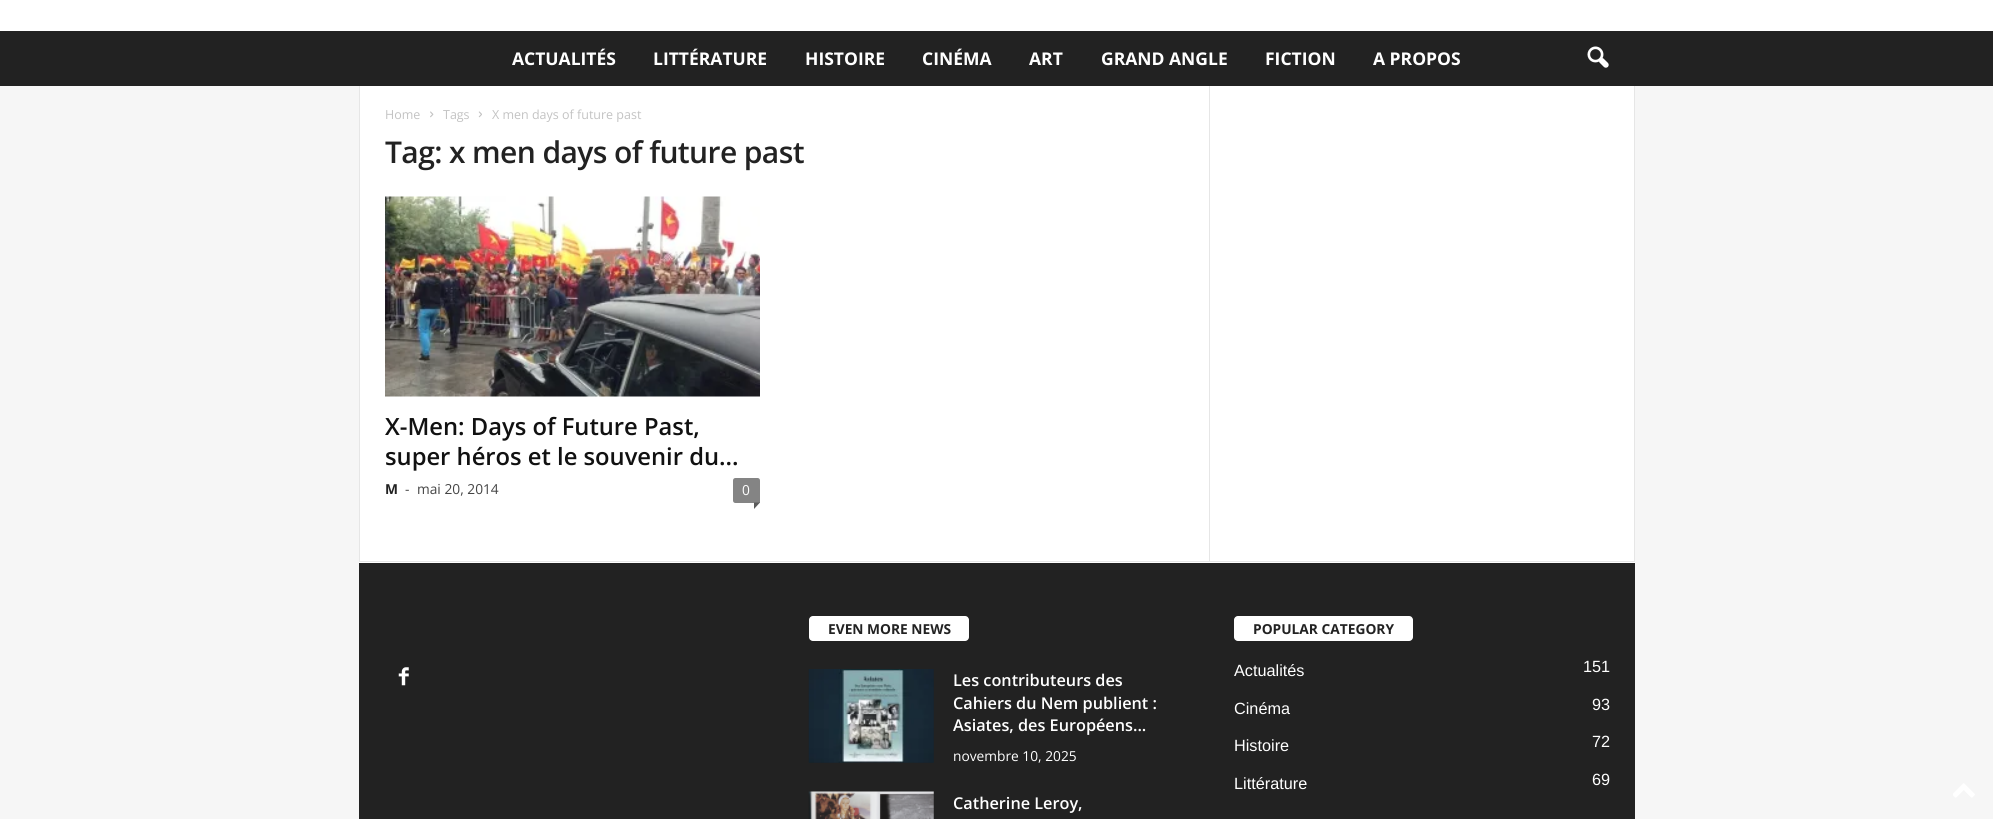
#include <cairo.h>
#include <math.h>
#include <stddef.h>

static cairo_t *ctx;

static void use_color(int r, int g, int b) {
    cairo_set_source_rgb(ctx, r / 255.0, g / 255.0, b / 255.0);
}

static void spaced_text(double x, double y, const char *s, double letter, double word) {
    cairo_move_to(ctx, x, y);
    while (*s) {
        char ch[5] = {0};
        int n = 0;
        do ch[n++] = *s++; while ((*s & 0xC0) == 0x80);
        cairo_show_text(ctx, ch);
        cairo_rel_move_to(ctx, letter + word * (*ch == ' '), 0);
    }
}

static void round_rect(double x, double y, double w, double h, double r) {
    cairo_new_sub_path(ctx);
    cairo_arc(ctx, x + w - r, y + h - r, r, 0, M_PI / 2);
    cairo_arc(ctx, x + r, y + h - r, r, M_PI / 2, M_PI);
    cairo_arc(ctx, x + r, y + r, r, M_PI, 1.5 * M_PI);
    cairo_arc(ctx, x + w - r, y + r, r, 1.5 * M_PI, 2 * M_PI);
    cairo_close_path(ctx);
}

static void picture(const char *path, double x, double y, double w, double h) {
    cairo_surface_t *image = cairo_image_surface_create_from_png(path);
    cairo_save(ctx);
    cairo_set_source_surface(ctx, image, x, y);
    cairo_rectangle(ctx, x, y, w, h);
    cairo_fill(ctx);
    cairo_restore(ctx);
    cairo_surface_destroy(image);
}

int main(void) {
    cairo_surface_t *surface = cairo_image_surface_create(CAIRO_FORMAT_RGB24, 1993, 819);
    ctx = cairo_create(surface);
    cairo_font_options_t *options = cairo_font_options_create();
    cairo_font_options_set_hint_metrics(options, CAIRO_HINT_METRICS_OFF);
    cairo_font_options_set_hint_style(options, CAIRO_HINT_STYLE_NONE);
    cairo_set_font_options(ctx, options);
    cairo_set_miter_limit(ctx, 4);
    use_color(246, 246, 246);
    cairo_paint(ctx);
    use_color(255, 255, 255);
    cairo_rectangle(ctx, 0, 0, 1993, 31);
    cairo_fill(ctx);
    use_color(34, 34, 34);
    cairo_rectangle(ctx, 0, 31, 1993, 55);
    cairo_fill(ctx);
    cairo_select_font_face(ctx, "Open Sans", CAIRO_FONT_SLANT_NORMAL, CAIRO_FONT_WEIGHT_BOLD);
    cairo_set_font_size(ctx, 17.5);
    use_color(255, 255, 255);
    cairo_move_to(ctx, 512, 65);
    cairo_show_text(ctx, "ACTUALITÉS");
    cairo_move_to(ctx, 653, 65);
    cairo_show_text(ctx, "LITTÉRATURE");
    cairo_move_to(ctx, 805, 65);
    cairo_show_text(ctx, "HISTOIRE");
    cairo_move_to(ctx, 922, 65);
    cairo_show_text(ctx, "CINÉMA");
    cairo_move_to(ctx, 1029, 65);
    cairo_show_text(ctx, "ART");
    cairo_move_to(ctx, 1101, 65);
    cairo_show_text(ctx, "GRAND ANGLE");
    cairo_move_to(ctx, 1265, 65);
    cairo_show_text(ctx, "FICTION");
    cairo_move_to(ctx, 1373, 65);
    cairo_show_text(ctx, "A PROPOS");
    picture("img1.png", 1587, 46, 22, 22);
    cairo_rectangle(ctx, 359, 86, 1276, 477);
    cairo_fill(ctx);
    use_color(230, 230, 230);
    cairo_rectangle(ctx, 359, 561, 1276, 1);
    cairo_fill(ctx);
    cairo_rectangle(ctx, 359, 86, 1, 475);
    cairo_fill(ctx);
    cairo_select_font_face(ctx, "Open Sans", CAIRO_FONT_SLANT_NORMAL, CAIRO_FONT_WEIGHT_NORMAL);
    cairo_set_font_size(ctx, 12.5);
    use_color(195, 195, 195);
    cairo_move_to(ctx, 385, 119);
    cairo_show_text(ctx, "Home");
    picture("img2.png", 430, 111, 4, 7);
    cairo_move_to(ctx, 443, 119);
    cairo_show_text(ctx, "Tags");
    picture("img3.png", 478, 111, 4, 7);
    cairo_move_to(ctx, 492, 119);
    cairo_show_text(ctx, "X men days of future past");
    cairo_select_font_face(ctx, "Open Sans SemiBold", CAIRO_FONT_SLANT_NORMAL, CAIRO_FONT_WEIGHT_NORMAL);
    cairo_set_font_size(ctx, 30);
    use_color(34, 34, 34);
    spaced_text(385, 163, "Tag: x men days of future past", -0.6, 0);
    picture("img4.png", 385, 196, 375, 201);
    cairo_set_font_size(ctx, 23.75);
    use_color(17, 17, 17);
    cairo_move_to(ctx, 385, 435);
    cairo_show_text(ctx, "X-Men: Days of Future Past,");
    cairo_move_to(ctx, 385, 465);
    cairo_show_text(ctx, "super héros et le souvenir du...");
    cairo_select_font_face(ctx, "Open Sans", CAIRO_FONT_SLANT_NORMAL, CAIRO_FONT_WEIGHT_BOLD);
    cairo_set_font_size(ctx, 13.75);
    use_color(34, 34, 34);
    cairo_move_to(ctx, 385, 494);
    cairo_show_text(ctx, "M");
    cairo_select_font_face(ctx, "Open Sans", CAIRO_FONT_SLANT_NORMAL, CAIRO_FONT_WEIGHT_NORMAL);
    use_color(68, 68, 68);
    cairo_move_to(ctx, 405, 494);
    cairo_show_text(ctx, "-");
    cairo_move_to(ctx, 417, 494);
    cairo_show_text(ctx, "mai 20, 2014");
    use_color(132, 132, 132);
    cairo_new_path(ctx);
    cairo_move_to(ctx, 735.5, 478);
    cairo_line_to(ctx, 757.5, 478);
    cairo_curve_to(ctx, 759, 478, 760, 479, 760, 480.5);
    cairo_line_to(ctx, 760, 503);
    cairo_line_to(ctx, 735.5, 503);
    cairo_curve_to(ctx, 734, 503, 733, 502, 733, 500.5);
    cairo_line_to(ctx, 733, 480.5);
    cairo_curve_to(ctx, 733, 479, 734, 478, 735.5, 478);
    cairo_close_path(ctx);
    cairo_fill(ctx);
    use_color(255, 255, 255);
    cairo_move_to(ctx, 742, 495);
    cairo_show_text(ctx, "0");
    use_color(91, 91, 91);
    cairo_new_path(ctx);
    cairo_move_to(ctx, 754, 502.5);
    cairo_line_to(ctx, 760, 502.5);
    cairo_line_to(ctx, 754, 509);
    cairo_close_path(ctx);
    cairo_fill(ctx);
    use_color(230, 230, 230);
    cairo_rectangle(ctx, 1209, 86, 1, 475);
    cairo_fill(ctx);
    cairo_rectangle(ctx, 1634, 86, 1, 475);
    cairo_fill(ctx);
    use_color(34, 34, 34);
    cairo_rectangle(ctx, 359, 563, 1276, 256);
    cairo_fill(ctx);
    picture("img5.png", 398, 667, 11, 19);
    use_color(255, 255, 255);
    round_rect(809, 616, 160, 25, 4);
    cairo_fill(ctx);
    cairo_select_font_face(ctx, "Open Sans", CAIRO_FONT_SLANT_NORMAL, CAIRO_FONT_WEIGHT_BOLD);
    use_color(34, 34, 34);
    cairo_move_to(ctx, 828, 634);
    cairo_show_text(ctx, "EVEN MORE NEWS");
    picture("img6.png", 808, 669, 126, 94);
    cairo_select_font_face(ctx, "Open Sans SemiBold", CAIRO_FONT_SLANT_NORMAL, CAIRO_FONT_WEIGHT_NORMAL);
    cairo_set_font_size(ctx, 16.25);
    use_color(255, 255, 255);
    cairo_move_to(ctx, 953, 686);
    cairo_show_text(ctx, "Les contributeurs des");
    cairo_move_to(ctx, 953, 709);
    cairo_show_text(ctx, "Cahiers du Nem publient :");
    cairo_move_to(ctx, 953, 731);
    cairo_show_text(ctx, "Asiates, des Européens...");
    cairo_select_font_face(ctx, "Open Sans", CAIRO_FONT_SLANT_NORMAL, CAIRO_FONT_WEIGHT_NORMAL);
    cairo_set_font_size(ctx, 13.75);
    cairo_move_to(ctx, 953, 761);
    cairo_show_text(ctx, "novembre 10, 2025");
    picture("img7.png", 808, 791, 126, 28);
    cairo_select_font_face(ctx, "Open Sans SemiBold", CAIRO_FONT_SLANT_NORMAL, CAIRO_FONT_WEIGHT_NORMAL);
    cairo_set_font_size(ctx, 16.25);
    cairo_move_to(ctx, 953, 809);
    cairo_show_text(ctx, "Catherine Leroy,");
    round_rect(1234, 616, 179, 25, 4);
    cairo_fill(ctx);
    cairo_select_font_face(ctx, "Open Sans", CAIRO_FONT_SLANT_NORMAL, CAIRO_FONT_WEIGHT_BOLD);
    cairo_set_font_size(ctx, 13.75);
    use_color(34, 34, 34);
    cairo_move_to(ctx, 1253, 634);
    cairo_show_text(ctx, "POPULAR CATEGORY");
    cairo_select_font_face(ctx, "Liberation Sans", CAIRO_FONT_SLANT_NORMAL, CAIRO_FONT_WEIGHT_NORMAL);
    cairo_set_font_size(ctx, 16.25);
    use_color(255, 255, 255);
    cairo_move_to(ctx, 1234, 676);
    cairo_show_text(ctx, "Actualités");
    cairo_move_to(ctx, 1583, 672);
    cairo_show_text(ctx, "151");
    cairo_move_to(ctx, 1234, 714);
    cairo_show_text(ctx, "Cinéma");
    cairo_move_to(ctx, 1592, 710);
    cairo_show_text(ctx, "93");
    cairo_move_to(ctx, 1234, 751);
    cairo_show_text(ctx, "Histoire");
    cairo_move_to(ctx, 1592, 747);
    cairo_show_text(ctx, "72");
    cairo_move_to(ctx, 1234, 789);
    cairo_show_text(ctx, "Littérature");
    cairo_move_to(ctx, 1592, 785);
    cairo_show_text(ctx, "69");
    picture("img8.png", 1953, 783, 22, 15);
    cairo_surface_write_to_png(surface, "result.png");
    cairo_font_options_destroy(options);
    cairo_destroy(ctx);
    cairo_surface_destroy(surface);
    return 0;
}
